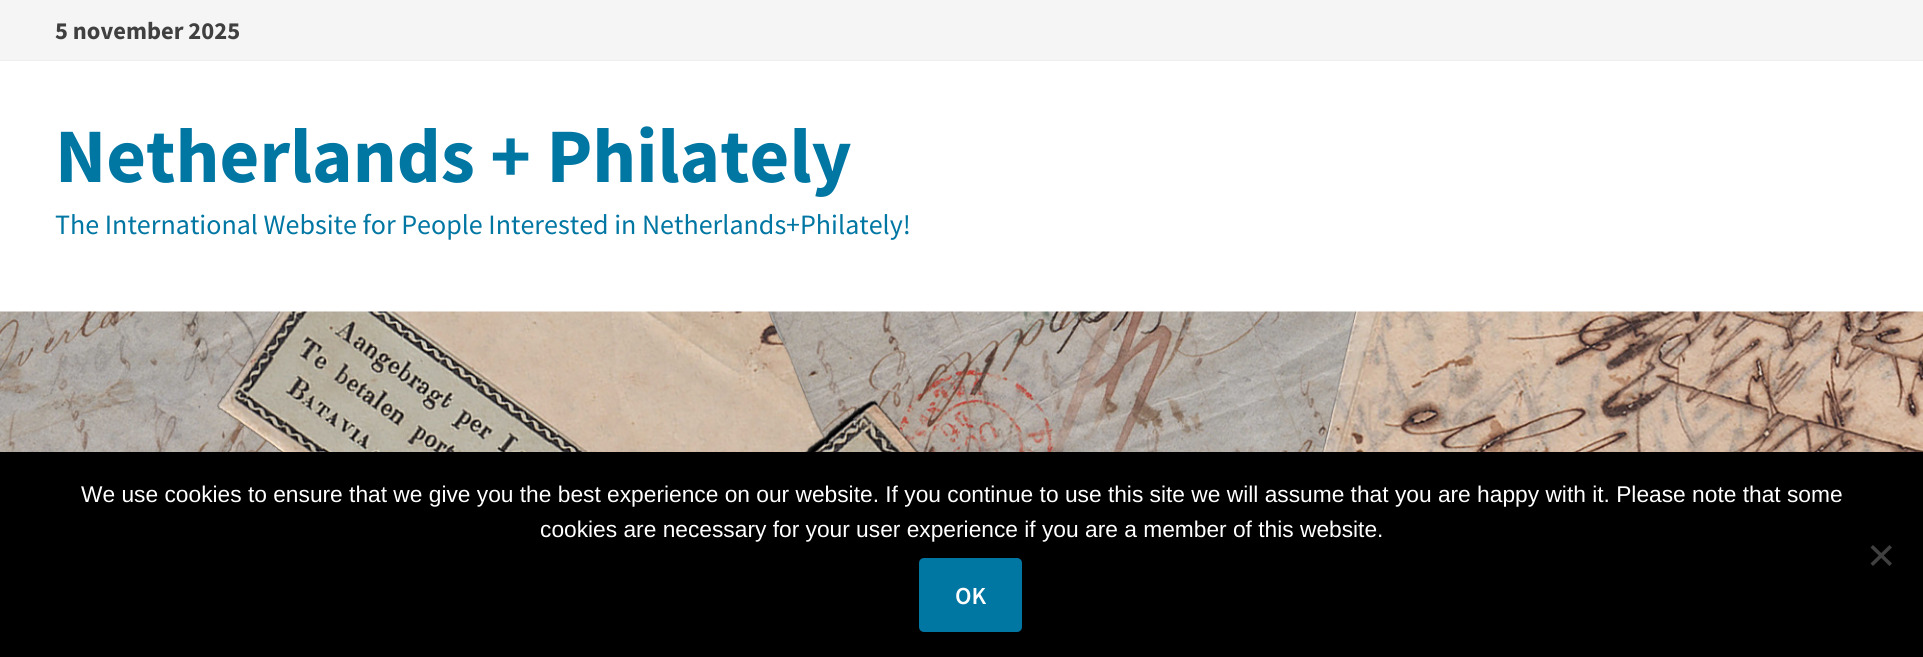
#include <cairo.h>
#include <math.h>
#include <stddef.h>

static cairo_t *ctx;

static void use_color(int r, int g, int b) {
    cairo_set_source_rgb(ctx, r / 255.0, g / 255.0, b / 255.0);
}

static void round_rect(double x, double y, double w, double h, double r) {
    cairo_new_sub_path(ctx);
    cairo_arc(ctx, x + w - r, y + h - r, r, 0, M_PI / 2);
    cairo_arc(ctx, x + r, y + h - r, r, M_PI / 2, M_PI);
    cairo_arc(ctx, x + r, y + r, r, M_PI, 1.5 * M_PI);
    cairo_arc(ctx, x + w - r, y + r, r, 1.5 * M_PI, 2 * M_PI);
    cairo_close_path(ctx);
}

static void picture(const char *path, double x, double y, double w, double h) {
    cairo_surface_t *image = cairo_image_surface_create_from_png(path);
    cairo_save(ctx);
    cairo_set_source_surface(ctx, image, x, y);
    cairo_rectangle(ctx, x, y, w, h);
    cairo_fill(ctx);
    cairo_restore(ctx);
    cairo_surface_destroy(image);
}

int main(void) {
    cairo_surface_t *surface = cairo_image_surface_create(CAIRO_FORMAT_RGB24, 1923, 657);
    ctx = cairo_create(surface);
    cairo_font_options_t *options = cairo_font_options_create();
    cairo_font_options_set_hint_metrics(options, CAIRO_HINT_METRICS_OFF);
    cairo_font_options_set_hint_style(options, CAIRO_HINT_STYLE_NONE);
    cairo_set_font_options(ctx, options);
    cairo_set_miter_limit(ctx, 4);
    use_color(245, 245, 245);
    cairo_paint(ctx);
    use_color(238, 238, 238);
    cairo_rectangle(ctx, 0, 60, 1923, 1);
    cairo_fill(ctx);
    cairo_select_font_face(ctx, "Source Sans Pro", CAIRO_FONT_SLANT_NORMAL, CAIRO_FONT_WEIGHT_BOLD);
    cairo_set_font_size(ctx, 24.5);
    use_color(64, 64, 64);
    cairo_move_to(ctx, 55, 39);
    cairo_show_text(ctx, "5 november 2025");
    use_color(255, 255, 255);
    cairo_rectangle(ctx, 0, 61, 1923, 251);
    cairo_fill(ctx);
    cairo_set_font_size(ctx, 77);
    use_color(0, 118, 163);
    cairo_move_to(ctx, 55, 182);
    cairo_show_text(ctx, "Netherlands + Philately");
    cairo_select_font_face(ctx, "Source Sans Pro", CAIRO_FONT_SLANT_NORMAL, CAIRO_FONT_WEIGHT_NORMAL);
    cairo_set_font_size(ctx, 28);
    cairo_move_to(ctx, 55, 234);
    cairo_show_text(ctx, "The International Website for People Interested in Netherlands+Philately!");
    picture("img1.png", 0, 311, 1923, 141);
    use_color(0, 0, 0);
    cairo_rectangle(ctx, 0, 452, 1923, 205);
    cairo_fill(ctx);
    cairo_select_font_face(ctx, "Liberation Sans", CAIRO_FONT_SLANT_NORMAL, CAIRO_FONT_WEIGHT_NORMAL);
    cairo_set_font_size(ctx, 22.75);
    use_color(255, 255, 255);
    cairo_move_to(ctx, 81, 502);
    cairo_show_text(ctx, "We use cookies to ensure that we give you the best experience on our website. If you continue to use this site we will assume that you are happy with it. Please note that some");
    cairo_move_to(ctx, 540, 537);
    cairo_show_text(ctx, "cookies are necessary for your user experience if you are a member of this website.");
    use_color(64, 64, 64);
    cairo_new_path(ctx);
    cairo_move_to(ctx, 1889.5, 545);
    cairo_line_to(ctx, 1892, 547.5);
    cairo_line_to(ctx, 1873, 566);
    cairo_line_to(ctx, 1870.5, 563.5);
    cairo_close_path(ctx);
    cairo_fill(ctx);
    cairo_new_path(ctx);
    cairo_move_to(ctx, 1870.5, 547.5);
    cairo_line_to(ctx, 1873, 545);
    cairo_line_to(ctx, 1892, 563.5);
    cairo_line_to(ctx, 1889.5, 566);
    cairo_close_path(ctx);
    cairo_fill(ctx);
    use_color(0, 118, 163);
    round_rect(919, 558, 103, 74, 5);
    cairo_fill(ctx);
    cairo_select_font_face(ctx, "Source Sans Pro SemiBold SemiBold", CAIRO_FONT_SLANT_NORMAL, CAIRO_FONT_WEIGHT_NORMAL);
    cairo_set_font_size(ctx, 24.5);
    use_color(255, 255, 255);
    cairo_move_to(ctx, 955, 604);
    cairo_show_text(ctx, "OK");
    cairo_surface_write_to_png(surface, "result.png");
    cairo_font_options_destroy(options);
    cairo_destroy(ctx);
    cairo_surface_destroy(surface);
    return 0;
}
